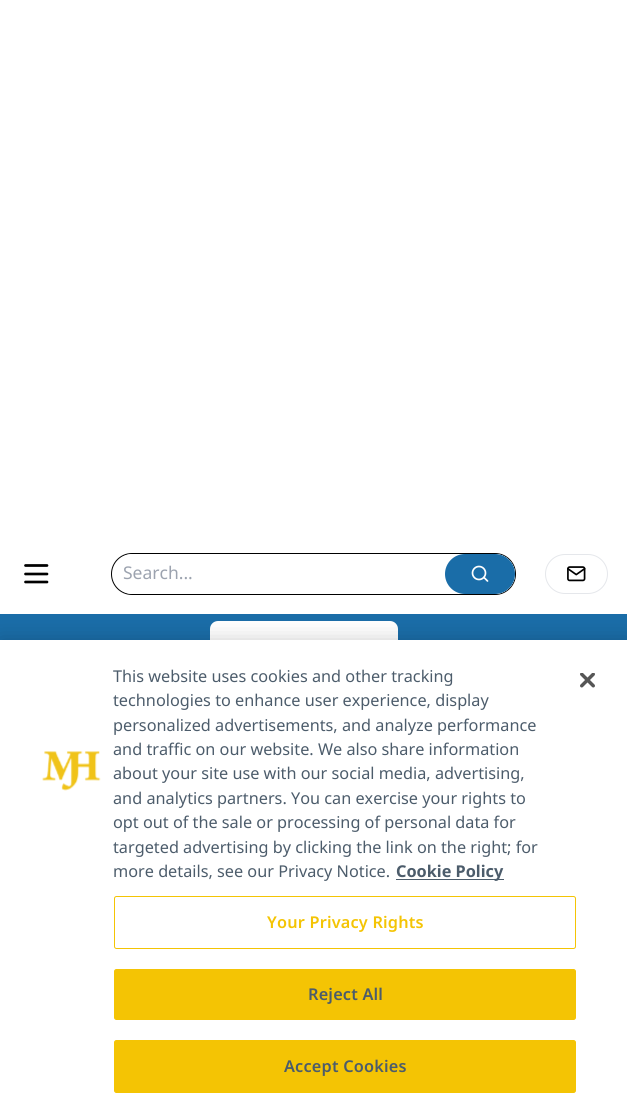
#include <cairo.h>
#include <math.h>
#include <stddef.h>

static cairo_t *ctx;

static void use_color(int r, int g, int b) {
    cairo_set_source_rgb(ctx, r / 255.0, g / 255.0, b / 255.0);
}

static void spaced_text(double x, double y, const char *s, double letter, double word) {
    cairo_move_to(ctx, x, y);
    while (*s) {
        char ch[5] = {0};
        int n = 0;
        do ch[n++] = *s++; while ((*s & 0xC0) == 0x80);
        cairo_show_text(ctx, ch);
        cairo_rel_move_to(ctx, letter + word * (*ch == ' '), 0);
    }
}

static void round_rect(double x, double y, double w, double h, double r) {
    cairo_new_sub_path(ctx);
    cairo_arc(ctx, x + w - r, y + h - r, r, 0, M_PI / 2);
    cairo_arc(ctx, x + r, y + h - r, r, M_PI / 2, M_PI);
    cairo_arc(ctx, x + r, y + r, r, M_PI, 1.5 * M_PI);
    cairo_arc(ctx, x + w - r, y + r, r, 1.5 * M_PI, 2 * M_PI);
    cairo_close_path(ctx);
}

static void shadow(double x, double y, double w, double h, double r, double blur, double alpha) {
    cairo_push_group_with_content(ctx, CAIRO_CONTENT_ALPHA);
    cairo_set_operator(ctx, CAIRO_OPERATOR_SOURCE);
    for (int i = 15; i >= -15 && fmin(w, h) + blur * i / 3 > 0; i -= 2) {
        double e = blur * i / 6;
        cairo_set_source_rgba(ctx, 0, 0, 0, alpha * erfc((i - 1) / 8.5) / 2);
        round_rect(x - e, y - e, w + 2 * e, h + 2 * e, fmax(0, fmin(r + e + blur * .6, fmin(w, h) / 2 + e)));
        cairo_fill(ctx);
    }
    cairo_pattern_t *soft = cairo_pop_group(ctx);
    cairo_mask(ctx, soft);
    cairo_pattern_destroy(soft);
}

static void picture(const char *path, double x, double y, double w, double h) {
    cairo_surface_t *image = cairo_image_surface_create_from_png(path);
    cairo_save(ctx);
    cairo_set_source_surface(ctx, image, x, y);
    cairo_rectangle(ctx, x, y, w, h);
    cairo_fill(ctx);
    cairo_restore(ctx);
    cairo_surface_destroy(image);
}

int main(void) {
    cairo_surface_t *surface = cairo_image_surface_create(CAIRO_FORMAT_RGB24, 627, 1112);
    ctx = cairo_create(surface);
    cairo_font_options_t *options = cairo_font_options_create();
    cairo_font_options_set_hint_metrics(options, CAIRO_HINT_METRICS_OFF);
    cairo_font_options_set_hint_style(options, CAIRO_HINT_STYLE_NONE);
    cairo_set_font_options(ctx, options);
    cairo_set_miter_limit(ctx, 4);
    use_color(255, 255, 255);
    cairo_paint(ctx);
    cairo_new_path(ctx);
    cairo_move_to(ctx, 25.5, 565.5);
    cairo_line_to(ctx, 47, 565.5);
    cairo_move_to(ctx, 25.5, 574);
    cairo_line_to(ctx, 47, 574);
    cairo_move_to(ctx, 25.5, 582);
    cairo_line_to(ctx, 47, 582);
    use_color(0, 0, 0);
    cairo_set_line_width(ctx, 2.7);
    cairo_set_line_cap(ctx, CAIRO_LINE_CAP_ROUND);
    cairo_set_line_join(ctx, CAIRO_LINE_JOIN_ROUND);
    cairo_stroke(ctx);
    round_rect(111.5, 553.5, 404, 41, 20.5);
    cairo_set_line_width(ctx, 1);
    cairo_set_line_cap(ctx, CAIRO_LINE_CAP_BUTT);
    cairo_set_line_join(ctx, CAIRO_LINE_JOIN_MITER);
    cairo_stroke(ctx);
    use_color(255, 255, 255);
    round_rect(113, 554, 402, 40, 20);
    cairo_fill(ctx);
    cairo_select_font_face(ctx, "Noto Sans", CAIRO_FONT_SLANT_NORMAL, CAIRO_FONT_WEIGHT_NORMAL);
    cairo_set_font_size(ctx, 17.5);
    use_color(156, 163, 175);
    cairo_move_to(ctx, 123, 579);
    cairo_show_text(ctx, "Search...");
    use_color(26, 109, 168);
    round_rect(445, 554, 70, 40, 20);
    cairo_fill(ctx);
    cairo_arc(ctx, 479, 573, 6.5, 0, 2 * M_PI);
    use_color(255, 255, 255);
    cairo_set_line_width(ctx, 1.7);
    cairo_stroke(ctx);
    cairo_new_path(ctx);
    cairo_move_to(ctx, 487.5, 581);
    cairo_line_to(ctx, 484, 577.5);
    cairo_set_line_cap(ctx, CAIRO_LINE_CAP_ROUND);
    cairo_set_line_join(ctx, CAIRO_LINE_JOIN_ROUND);
    cairo_stroke(ctx);
    round_rect(545.5, 554.5, 62, 39, 19.5);
    use_color(229, 231, 235);
    cairo_set_line_width(ctx, 1);
    cairo_set_line_cap(ctx, CAIRO_LINE_CAP_BUTT);
    cairo_set_line_join(ctx, CAIRO_LINE_JOIN_MITER);
    cairo_stroke(ctx);
    picture("img1.png", 567, 566, 19, 16);
    use_color(26, 109, 168);
    cairo_rectangle(ctx, 0, 614, 627, 26);
    cairo_fill(ctx);
    use_color(255, 255, 255);
    round_rect(210, 621, 188, 45, 8);
    cairo_fill(ctx);
    use_color(0, 0, 0);
    shadow(0, 640, 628, 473, 0, 11, 0.2);
    use_color(255, 255, 255);
    cairo_rectangle(ctx, 0, 640, 627, 472);
    cairo_fill(ctx);
    picture("img2.png", 42, 751, 59, 40);
    cairo_set_font_size(ctx, 16.25);
    use_color(76, 92, 107);
    cairo_move_to(ctx, 113, 682);
    cairo_show_text(ctx, "This website uses cookies and other tracking");
    cairo_move_to(ctx, 113, 706);
    cairo_show_text(ctx, "technologies to enhance user experience, display");
    cairo_move_to(ctx, 113, 731);
    cairo_show_text(ctx, "personalized advertisements, and analyze performance");
    cairo_move_to(ctx, 113, 755);
    cairo_show_text(ctx, "and traffic on our website. We also share information");
    cairo_move_to(ctx, 113, 779);
    cairo_show_text(ctx, "about your site use with our social media, advertising,");
    cairo_move_to(ctx, 113, 804);
    cairo_show_text(ctx, "and analytics partners. You can exercise your rights to");
    cairo_move_to(ctx, 113, 828);
    cairo_show_text(ctx, "opt out of the sale or processing of personal data for");
    cairo_move_to(ctx, 113, 853);
    cairo_show_text(ctx, "targeted advertising by clicking the link on the right; for");
    cairo_move_to(ctx, 113, 877);
    cairo_show_text(ctx, "more details, see our Privacy Notice.");
    cairo_rectangle(ctx, 396, 879, 108, 1);
    cairo_fill(ctx);
    cairo_select_font_face(ctx, "Noto Sans", CAIRO_FONT_SLANT_NORMAL, CAIRO_FONT_WEIGHT_BOLD);
    cairo_move_to(ctx, 396, 877);
    cairo_show_text(ctx, "Cookie Policy");
    round_rect(114.5, 896.5, 461, 52, 2);
    use_color(244, 196, 4);
    cairo_stroke(ctx);
    cairo_select_font_face(ctx, "Noto Sans SemiBold", CAIRO_FONT_SLANT_NORMAL, CAIRO_FONT_WEIGHT_NORMAL);
    spaced_text(267, 928, "Your Privacy Rights", 0.2, 0);
    round_rect(114.5, 969.5, 461, 50, 2);
    cairo_fill_preserve(ctx);
    cairo_stroke(ctx);
    use_color(76, 92, 107);
    spaced_text(308, 1000, "Reject All", 0.2, 0);
    use_color(244, 196, 4);
    round_rect(114.5, 1040.5, 461, 52, 2);
    cairo_fill_preserve(ctx);
    cairo_stroke(ctx);
    use_color(76, 92, 107);
    spaced_text(284, 1072, "Accept Cookies", 0.2, 0);
    picture("img3.png", 580, 673, 15, 15);
    cairo_surface_write_to_png(surface, "result.png");
    cairo_font_options_destroy(options);
    cairo_destroy(ctx);
    cairo_surface_destroy(surface);
    return 0;
}
